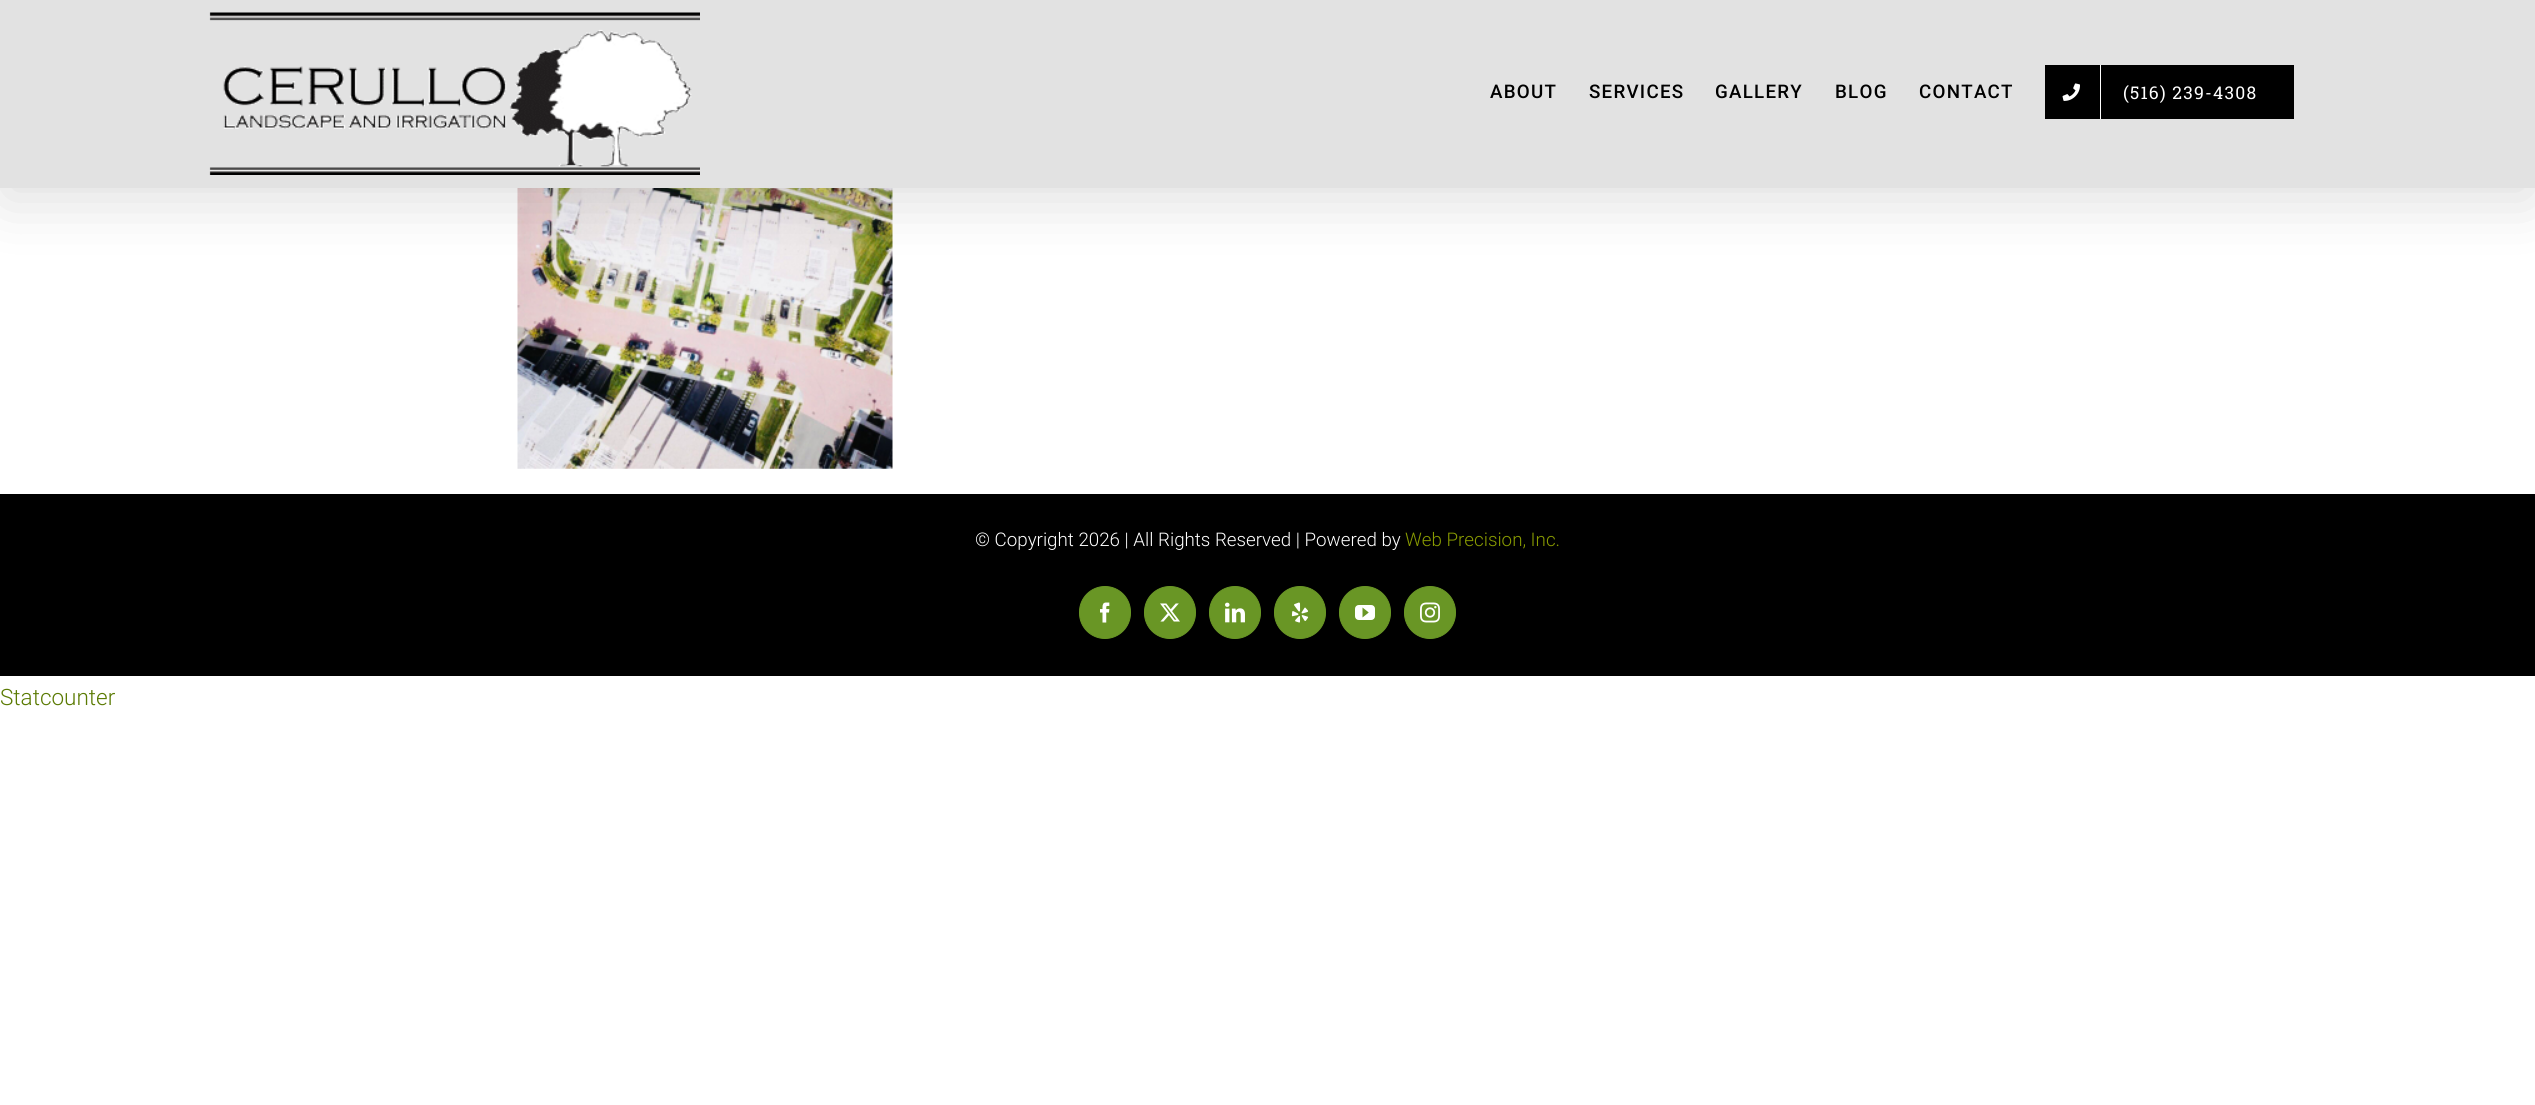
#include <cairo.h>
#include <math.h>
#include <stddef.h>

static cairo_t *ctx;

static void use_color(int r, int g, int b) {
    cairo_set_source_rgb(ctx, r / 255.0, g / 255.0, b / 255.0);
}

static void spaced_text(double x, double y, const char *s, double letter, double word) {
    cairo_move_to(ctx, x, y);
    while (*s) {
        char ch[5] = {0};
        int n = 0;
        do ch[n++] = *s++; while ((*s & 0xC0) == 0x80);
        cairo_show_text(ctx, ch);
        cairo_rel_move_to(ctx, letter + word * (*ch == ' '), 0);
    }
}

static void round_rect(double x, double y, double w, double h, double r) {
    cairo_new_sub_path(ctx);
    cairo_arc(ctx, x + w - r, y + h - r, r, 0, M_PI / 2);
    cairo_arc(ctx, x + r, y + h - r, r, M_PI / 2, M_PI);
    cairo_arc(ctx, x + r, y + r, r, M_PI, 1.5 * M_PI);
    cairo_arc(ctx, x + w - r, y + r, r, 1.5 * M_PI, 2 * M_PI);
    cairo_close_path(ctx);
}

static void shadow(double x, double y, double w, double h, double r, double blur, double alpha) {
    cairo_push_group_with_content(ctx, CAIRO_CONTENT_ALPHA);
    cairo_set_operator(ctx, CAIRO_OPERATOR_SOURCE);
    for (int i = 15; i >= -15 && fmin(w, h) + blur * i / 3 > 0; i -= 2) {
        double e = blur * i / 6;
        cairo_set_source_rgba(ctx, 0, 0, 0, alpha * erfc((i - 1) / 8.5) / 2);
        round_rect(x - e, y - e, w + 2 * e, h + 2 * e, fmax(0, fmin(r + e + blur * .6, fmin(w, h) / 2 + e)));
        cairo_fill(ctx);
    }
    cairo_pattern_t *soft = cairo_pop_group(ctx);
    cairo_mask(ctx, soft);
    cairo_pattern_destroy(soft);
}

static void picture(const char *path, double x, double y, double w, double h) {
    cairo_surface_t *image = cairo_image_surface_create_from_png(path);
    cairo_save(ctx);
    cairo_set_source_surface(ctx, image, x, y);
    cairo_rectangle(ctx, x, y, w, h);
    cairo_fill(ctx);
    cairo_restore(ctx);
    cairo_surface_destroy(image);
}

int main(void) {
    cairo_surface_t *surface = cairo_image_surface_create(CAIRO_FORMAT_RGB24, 2535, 1105);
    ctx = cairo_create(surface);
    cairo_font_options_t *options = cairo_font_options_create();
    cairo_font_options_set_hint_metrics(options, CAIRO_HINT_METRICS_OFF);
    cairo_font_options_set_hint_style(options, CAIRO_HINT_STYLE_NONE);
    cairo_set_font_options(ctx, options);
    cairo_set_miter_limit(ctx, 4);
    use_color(255, 255, 255);
    cairo_paint(ctx);
    picture("img3.png", 517, 188, 376, 281);
    use_color(0, 0, 0);
    shadow(3, 15, 2530, 183, 0, 31, 0.14);
    use_color(226, 226, 226);
    cairo_rectangle(ctx, 0, 0, 2535, 188);
    cairo_fill(ctx);
    picture("img1.png", 209, 12, 491, 163);
    cairo_select_font_face(ctx, "Roboto Medium", CAIRO_FONT_SLANT_NORMAL, CAIRO_FONT_WEIGHT_NORMAL);
    cairo_set_font_size(ctx, 18.75);
    use_color(0, 0, 0);
    spaced_text(1490, 98, "ABOUT", 1.25, 0);
    spaced_text(1589, 98, "SERVICES", 1.25, 0);
    spaced_text(1715, 98, "GALLERY", 1.25, 0);
    spaced_text(1835, 98, "BLOG", 1.25, 0);
    spaced_text(1919, 98, "CONTACT", 1.25, 0);
    cairo_rectangle(ctx, 2045, 65, 249, 54);
    cairo_fill(ctx);
    use_color(255, 255, 255);
    cairo_rectangle(ctx, 2100, 65, 1, 54);
    cairo_fill(ctx);
    picture("img2.png", 2062, 83, 18, 18);
    cairo_select_font_face(ctx, "Roboto Slab", CAIRO_FONT_SLANT_NORMAL, CAIRO_FONT_WEIGHT_NORMAL);
    cairo_set_font_size(ctx, 17.5);
    spaced_text(2123, 99, "(516) 239-4308", 1.25, 0);
    use_color(0, 0, 0);
    cairo_rectangle(ctx, 0, 494, 2535, 182);
    cairo_fill(ctx);
    cairo_select_font_face(ctx, "Roboto Light", CAIRO_FONT_SLANT_NORMAL, CAIRO_FONT_WEIGHT_NORMAL);
    cairo_set_font_size(ctx, 18.75);
    use_color(255, 255, 255);
    cairo_move_to(ctx, 975, 546);
    cairo_show_text(ctx, "© Copyright 2026 | All Rights Reserved | Powered by");
    use_color(137, 155, 1);
    cairo_move_to(ctx, 1405, 546);
    cairo_show_text(ctx, "Web Precision, Inc.");
    use_color(105, 150, 37);
    round_rect(1079.5, 586.5, 51, 52, 25.5);
    cairo_fill_preserve(ctx);
    cairo_set_line_width(ctx, 1);
    cairo_stroke(ctx);
    picture("img4.png", 1100, 602, 10, 21);
    round_rect(1144.5, 586.5, 51, 52, 25.5);
    cairo_fill_preserve(ctx);
    cairo_stroke(ctx);
    picture("img5.png", 1160, 603, 20, 19);
    round_rect(1209.5, 586.5, 51, 52, 25.5);
    cairo_fill_preserve(ctx);
    cairo_stroke(ctx);
    picture("img6.png", 1225, 602, 20, 21);
    round_rect(1274.5, 586.5, 51, 52, 25.5);
    cairo_fill_preserve(ctx);
    cairo_stroke(ctx);
    picture("img7.png", 1291, 602, 18, 21);
    round_rect(1339.5, 586.5, 51, 52, 25.5);
    cairo_fill_preserve(ctx);
    cairo_stroke(ctx);
    picture("img8.png", 1355, 605, 20, 15);
    round_rect(1404.5, 586.5, 51, 52, 25.5);
    cairo_fill_preserve(ctx);
    cairo_stroke(ctx);
    picture("img9.png", 1420, 602, 20, 21);
    cairo_set_font_size(ctx, 22.5);
    use_color(90, 122, 2);
    cairo_move_to(ctx, 0, 705);
    cairo_show_text(ctx, "Statcounter");
    cairo_surface_write_to_png(surface, "result.png");
    cairo_font_options_destroy(options);
    cairo_destroy(ctx);
    cairo_surface_destroy(surface);
    return 0;
}
